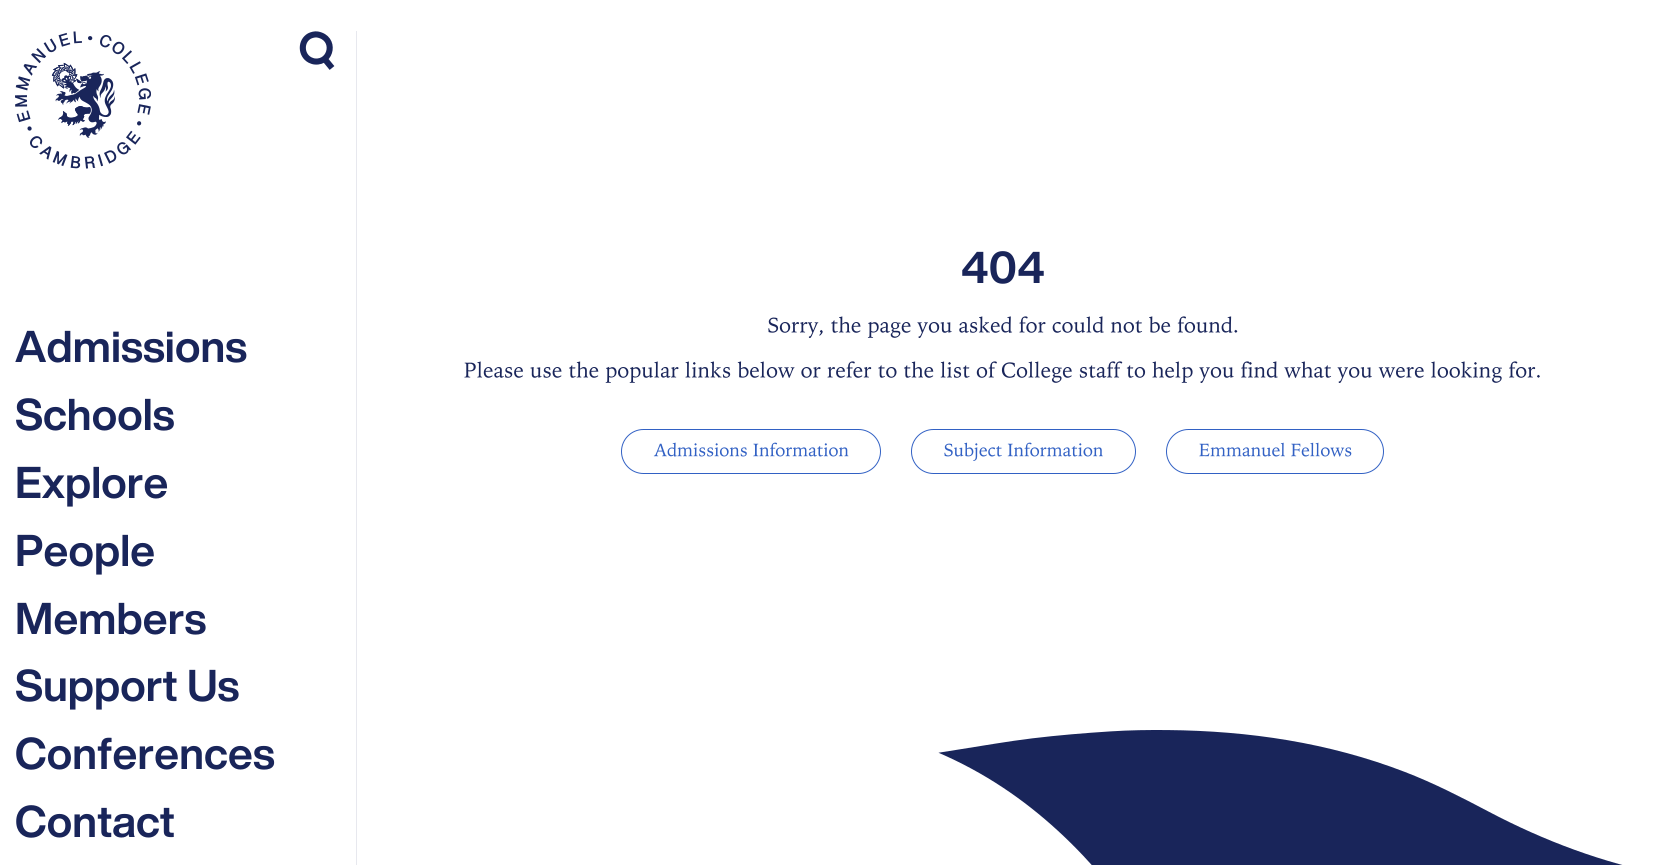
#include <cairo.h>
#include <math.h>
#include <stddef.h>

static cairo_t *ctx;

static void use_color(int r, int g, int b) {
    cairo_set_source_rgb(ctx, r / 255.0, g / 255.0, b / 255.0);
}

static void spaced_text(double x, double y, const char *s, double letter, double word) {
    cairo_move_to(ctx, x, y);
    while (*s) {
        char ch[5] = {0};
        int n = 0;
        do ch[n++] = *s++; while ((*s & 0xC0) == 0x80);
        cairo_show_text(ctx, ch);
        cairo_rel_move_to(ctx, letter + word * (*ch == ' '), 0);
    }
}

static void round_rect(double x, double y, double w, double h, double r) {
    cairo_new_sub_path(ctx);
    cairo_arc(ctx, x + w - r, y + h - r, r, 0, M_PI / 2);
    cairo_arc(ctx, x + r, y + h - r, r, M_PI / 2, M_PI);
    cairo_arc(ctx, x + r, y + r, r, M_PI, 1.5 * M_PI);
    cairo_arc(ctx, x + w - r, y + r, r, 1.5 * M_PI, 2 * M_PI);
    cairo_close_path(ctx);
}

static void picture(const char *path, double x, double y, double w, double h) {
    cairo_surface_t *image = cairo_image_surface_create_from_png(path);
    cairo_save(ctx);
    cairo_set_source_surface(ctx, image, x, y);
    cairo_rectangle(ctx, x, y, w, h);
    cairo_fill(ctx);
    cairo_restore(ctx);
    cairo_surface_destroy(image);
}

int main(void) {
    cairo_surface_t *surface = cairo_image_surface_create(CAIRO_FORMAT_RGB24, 1668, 865);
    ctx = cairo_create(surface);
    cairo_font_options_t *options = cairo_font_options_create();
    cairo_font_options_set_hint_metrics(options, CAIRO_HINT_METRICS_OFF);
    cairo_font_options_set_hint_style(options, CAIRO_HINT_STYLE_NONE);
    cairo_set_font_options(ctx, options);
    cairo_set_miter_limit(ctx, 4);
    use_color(255, 255, 255);
    cairo_paint(ctx);
    cairo_select_font_face(ctx, "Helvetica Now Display", CAIRO_FONT_SLANT_NORMAL, CAIRO_FONT_WEIGHT_BOLD);
    cairo_set_font_size(ctx, 43.75);
    use_color(25, 37, 90);
    spaced_text(961, 283, "404", 0.1, 0);
    picture("img1.png", 768, 316, 470, 22);
    picture("img2.png", 464, 361, 1076, 22);
    round_rect(621.5, 429.5, 259, 44, 22);
    use_color(50, 97, 196);
    cairo_set_line_width(ctx, 1);
    cairo_stroke(ctx);
    picture("img3.png", 653, 442, 196, 15);
    round_rect(911.5, 429.5, 224, 44, 22);
    cairo_stroke(ctx);
    picture("img4.png", 944, 442, 159, 19);
    round_rect(1166.5, 429.5, 217, 44, 22);
    cairo_stroke(ctx);
    picture("img5.png", 1199, 442, 153, 15);
    use_color(231, 232, 238);
    cairo_rectangle(ctx, 356, 31, 1, 834);
    cairo_fill(ctx);
    picture("img6.png", 15, 31, 136, 138);
    cairo_new_path(ctx);
    cairo_move_to(ctx, 323, 57);
    cairo_line_to(ctx, 332, 68);
    cairo_move_to(ctx, 315, 61.5);
    cairo_curve_to(ctx, 331.5, 63, 336.5, 38, 317.5, 34.5);
    cairo_curve_to(ctx, 315, 34, 311.5, 35, 309.5, 36);
    cairo_curve_to(ctx, 300.5, 41, 300.5, 55, 310, 60);
    cairo_curve_to(ctx, 311, 60.5, 313.5, 61.5, 315, 61.5);
    cairo_close_path(ctx);
    use_color(25, 37, 90);
    cairo_set_line_width(ctx, 6.1);
    cairo_stroke(ctx);
    spaced_text(15, 362, "Admissions", 0.1, 0);
    spaced_text(15, 430, "Schools", 0.1, 0);
    spaced_text(15, 498, "Explore", 0.1, 0);
    spaced_text(15, 566, "People", 0.1, 0);
    spaced_text(15, 634, "Members", 0.1, 0);
    spaced_text(15, 701, "Support Us", 0.1, 0);
    spaced_text(15, 769, "Conferences", 0.1, 0);
    spaced_text(15, 837, "Contact", 0.1, 0);
    picture("img7.png", 938, 730, 685, 135);
    cairo_surface_write_to_png(surface, "result.png");
    cairo_font_options_destroy(options);
    cairo_destroy(ctx);
    cairo_surface_destroy(surface);
    return 0;
}
